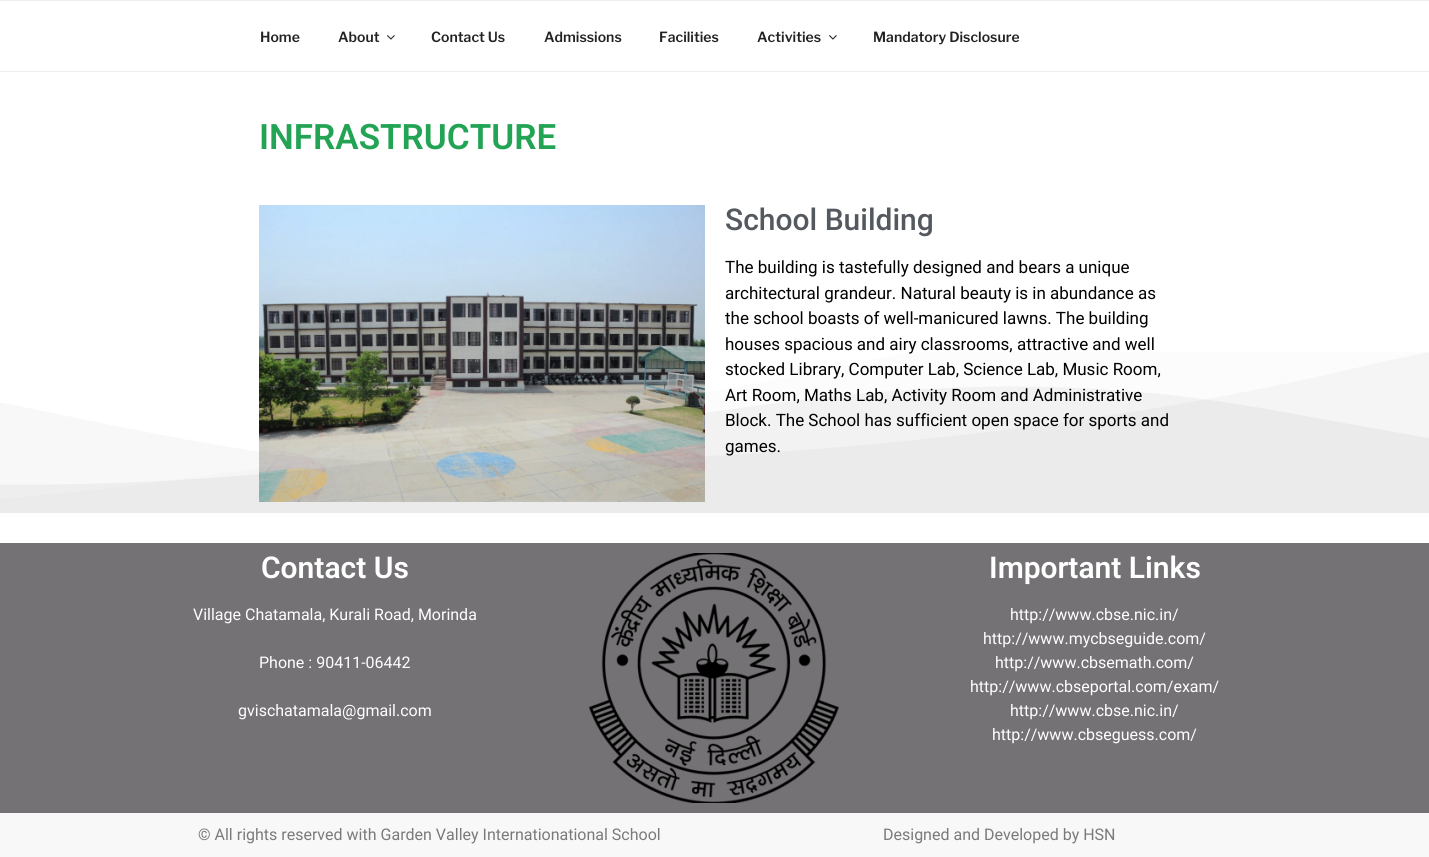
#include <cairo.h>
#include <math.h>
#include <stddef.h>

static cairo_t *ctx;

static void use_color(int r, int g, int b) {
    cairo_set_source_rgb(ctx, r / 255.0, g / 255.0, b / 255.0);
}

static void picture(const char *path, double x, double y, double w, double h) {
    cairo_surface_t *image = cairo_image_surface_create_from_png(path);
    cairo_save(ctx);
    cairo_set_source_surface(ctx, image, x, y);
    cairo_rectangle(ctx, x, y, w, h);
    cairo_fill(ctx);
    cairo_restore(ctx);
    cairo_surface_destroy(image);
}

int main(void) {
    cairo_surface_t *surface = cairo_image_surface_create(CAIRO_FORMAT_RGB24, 1429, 857);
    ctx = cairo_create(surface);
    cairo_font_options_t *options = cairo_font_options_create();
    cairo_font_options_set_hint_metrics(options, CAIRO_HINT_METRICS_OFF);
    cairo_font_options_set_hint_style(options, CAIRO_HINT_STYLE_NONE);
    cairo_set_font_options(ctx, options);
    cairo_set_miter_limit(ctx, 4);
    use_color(255, 255, 255);
    cairo_paint(ctx);
    use_color(238, 238, 238);
    cairo_rectangle(ctx, 0, 0, 1429, 1);
    cairo_fill(ctx);
    cairo_rectangle(ctx, 0, 71, 1429, 1);
    cairo_fill(ctx);
    cairo_select_font_face(ctx, "Libre Franklin Thin", CAIRO_FONT_SLANT_NORMAL, CAIRO_FONT_WEIGHT_NORMAL);
    cairo_set_font_size(ctx, 14);
    use_color(34, 34, 34);
    cairo_move_to(ctx, 260, 42);
    cairo_show_text(ctx, "Home");
    cairo_move_to(ctx, 338, 42);
    cairo_show_text(ctx, "About");
    picture("img1.png", 387, 35, 8, 5);
    cairo_move_to(ctx, 431, 42);
    cairo_show_text(ctx, "Contact Us");
    cairo_move_to(ctx, 544, 42);
    cairo_show_text(ctx, "Admissions");
    cairo_move_to(ctx, 659, 42);
    cairo_show_text(ctx, "Facilities");
    cairo_move_to(ctx, 757, 42);
    cairo_show_text(ctx, "Activities");
    picture("img1.png", 829, 35, 8, 5);
    cairo_move_to(ctx, 873, 42);
    cairo_show_text(ctx, "Mandatory Disclosure");
    cairo_select_font_face(ctx, "Roboto SemiBold", CAIRO_FONT_SLANT_NORMAL, CAIRO_FONT_WEIGHT_NORMAL);
    cairo_set_font_size(ctx, 35);
    use_color(35, 164, 85);
    cairo_move_to(ctx, 259, 149);
    cairo_show_text(ctx, "INFRASTRUCTURE");
    picture("img2.png", 259, 205, 446, 297);
    cairo_select_font_face(ctx, "Roboto Medium", CAIRO_FONT_SLANT_NORMAL, CAIRO_FONT_WEIGHT_NORMAL);
    cairo_set_font_size(ctx, 30);
    use_color(84, 89, 95);
    cairo_move_to(ctx, 725, 230);
    cairo_show_text(ctx, "School Building");
    cairo_select_font_face(ctx, "Roboto", CAIRO_FONT_SLANT_NORMAL, CAIRO_FONT_WEIGHT_NORMAL);
    cairo_set_font_size(ctx, 17);
    use_color(0, 0, 0);
    cairo_move_to(ctx, 725, 273);
    cairo_show_text(ctx, "The building is tastefully designed and bears a unique");
    cairo_move_to(ctx, 725, 299);
    cairo_show_text(ctx, "architectural grandeur. Natural beauty is in abundance as");
    cairo_move_to(ctx, 725, 324);
    cairo_show_text(ctx, "the school boasts of well-manicured lawns. The building");
    cairo_move_to(ctx, 725, 350);
    cairo_show_text(ctx, "houses spacious and airy classrooms, attractive and well");
    cairo_move_to(ctx, 725, 375);
    cairo_show_text(ctx, "stocked Library, Computer Lab, Science Lab, Music Room,");
    cairo_move_to(ctx, 725, 401);
    cairo_show_text(ctx, "Art Room, Maths Lab, Activity Room and Administrative");
    cairo_move_to(ctx, 725, 426);
    cairo_show_text(ctx, "Block. The School has sufficient open space for sports and");
    cairo_move_to(ctx, 725, 452);
    cairo_show_text(ctx, "games.");
    picture("img3.png", 0, 352, 1429, 161);
    use_color(116, 114, 116);
    cairo_rectangle(ctx, 0, 543, 1429, 270);
    cairo_fill(ctx);
    cairo_select_font_face(ctx, "Roboto SemiBold", CAIRO_FONT_SLANT_NORMAL, CAIRO_FONT_WEIGHT_NORMAL);
    cairo_set_font_size(ctx, 30);
    use_color(255, 255, 255);
    cairo_move_to(ctx, 261, 578);
    cairo_show_text(ctx, "Contact Us");
    cairo_select_font_face(ctx, "Roboto", CAIRO_FONT_SLANT_NORMAL, CAIRO_FONT_WEIGHT_NORMAL);
    cairo_set_font_size(ctx, 16);
    cairo_move_to(ctx, 193, 620);
    cairo_show_text(ctx, "Village Chatamala, Kurali Road, Morinda");
    cairo_move_to(ctx, 259, 668);
    cairo_show_text(ctx, "Phone : 90411-06442");
    cairo_move_to(ctx, 238, 716);
    cairo_show_text(ctx, "gvischatamala@gmail.com");
    picture("img4.png", 589, 553, 250, 250);
    cairo_select_font_face(ctx, "Roboto SemiBold", CAIRO_FONT_SLANT_NORMAL, CAIRO_FONT_WEIGHT_NORMAL);
    cairo_set_font_size(ctx, 30);
    cairo_move_to(ctx, 989, 578);
    cairo_show_text(ctx, "Important Links");
    cairo_select_font_face(ctx, "Roboto", CAIRO_FONT_SLANT_NORMAL, CAIRO_FONT_WEIGHT_NORMAL);
    cairo_set_font_size(ctx, 16);
    cairo_move_to(ctx, 1010, 620);
    cairo_show_text(ctx, "http://www.cbse.nic.in/");
    cairo_move_to(ctx, 983, 644);
    cairo_show_text(ctx, "http://www.mycbseguide.com/");
    cairo_move_to(ctx, 995, 668);
    cairo_show_text(ctx, "http://www.cbsemath.com/");
    cairo_move_to(ctx, 970, 692);
    cairo_show_text(ctx, "http://www.cbseportal.com/exam/");
    cairo_move_to(ctx, 1010, 716);
    cairo_show_text(ctx, "http://www.cbse.nic.in/");
    cairo_move_to(ctx, 992, 740);
    cairo_show_text(ctx, "http://www.cbseguess.com/");
    use_color(248, 248, 248);
    cairo_rectangle(ctx, 0, 813, 1429, 44);
    cairo_fill(ctx);
    use_color(122, 122, 122);
    cairo_move_to(ctx, 198, 840);
    cairo_show_text(ctx, "© All rights reserved with Garden Valley Internationational School");
    cairo_move_to(ctx, 883, 840);
    cairo_show_text(ctx, "Designed and Developed by HSN");
    cairo_surface_write_to_png(surface, "result.png");
    cairo_font_options_destroy(options);
    cairo_destroy(ctx);
    cairo_surface_destroy(surface);
    return 0;
}
